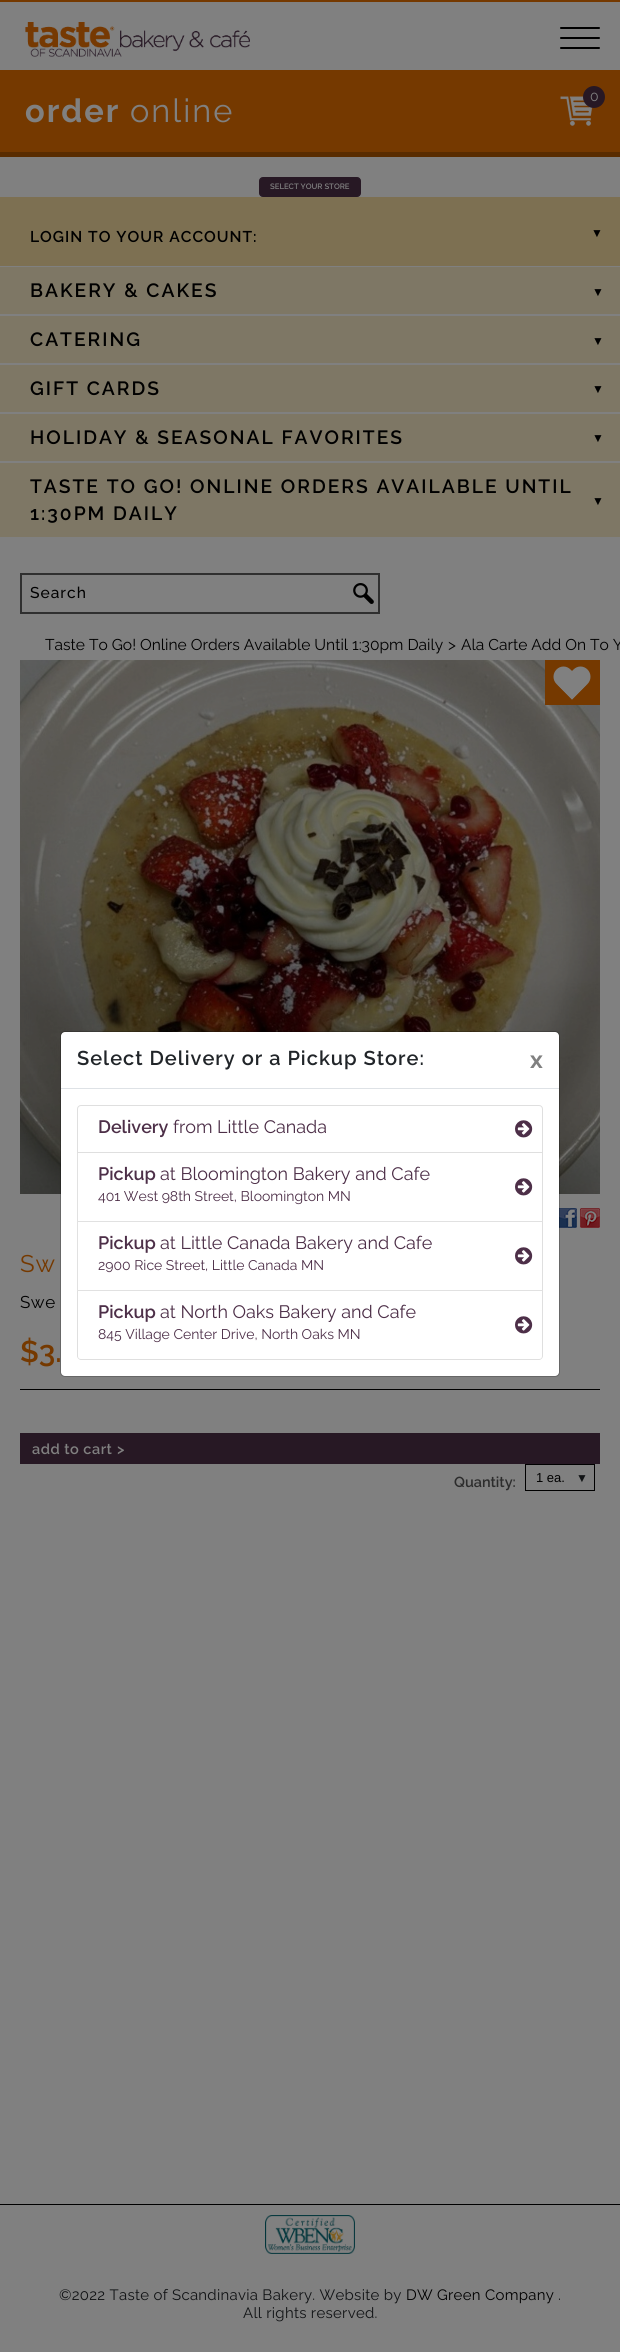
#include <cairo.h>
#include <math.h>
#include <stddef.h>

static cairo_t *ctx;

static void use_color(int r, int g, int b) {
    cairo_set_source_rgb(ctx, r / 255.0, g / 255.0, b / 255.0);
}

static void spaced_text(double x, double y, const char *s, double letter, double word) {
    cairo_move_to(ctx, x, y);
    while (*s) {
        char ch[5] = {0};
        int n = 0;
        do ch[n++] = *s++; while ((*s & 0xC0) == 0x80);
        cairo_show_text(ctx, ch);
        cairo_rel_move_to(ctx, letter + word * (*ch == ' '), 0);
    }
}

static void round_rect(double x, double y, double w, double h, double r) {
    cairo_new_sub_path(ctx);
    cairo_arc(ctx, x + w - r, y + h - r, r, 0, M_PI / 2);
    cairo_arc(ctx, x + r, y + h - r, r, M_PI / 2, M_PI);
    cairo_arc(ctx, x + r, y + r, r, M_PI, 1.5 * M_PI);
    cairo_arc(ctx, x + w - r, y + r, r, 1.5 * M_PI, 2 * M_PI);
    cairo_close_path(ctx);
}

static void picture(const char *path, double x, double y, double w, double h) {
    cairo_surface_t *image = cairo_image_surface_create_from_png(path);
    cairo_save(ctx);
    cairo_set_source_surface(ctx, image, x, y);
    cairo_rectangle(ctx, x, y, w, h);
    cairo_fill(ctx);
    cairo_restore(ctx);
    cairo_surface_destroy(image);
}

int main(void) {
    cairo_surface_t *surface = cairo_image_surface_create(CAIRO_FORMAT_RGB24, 620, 2352);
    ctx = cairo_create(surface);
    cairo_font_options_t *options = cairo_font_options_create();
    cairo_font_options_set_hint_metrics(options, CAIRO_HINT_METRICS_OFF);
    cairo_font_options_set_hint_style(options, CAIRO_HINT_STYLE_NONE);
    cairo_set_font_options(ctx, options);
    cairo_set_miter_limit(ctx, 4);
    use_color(128, 128, 128);
    cairo_paint(ctx);
    use_color(117, 57, 0);
    cairo_rectangle(ctx, 0, 0, 620, 2);
    cairo_fill(ctx);
    picture("img1.png", 25, 22, 225, 35);
    use_color(0, 0, 0);
    round_rect(560, 27, 40, 2, 1);
    cairo_fill(ctx);
    round_rect(560, 37, 40, 2, 1);
    cairo_fill(ctx);
    round_rect(560, 47, 40, 2, 1);
    cairo_fill(ctx);
    use_color(117, 57, 0);
    cairo_rectangle(ctx, 0, 70, 620, 82);
    cairo_fill(ctx);
    use_color(89, 44, 0);
    cairo_rectangle(ctx, 0, 152, 620, 5);
    cairo_fill(ctx);
    picture("img2.png", 560, 96, 33, 30);
    use_color(39, 24, 36);
    cairo_arc(ctx, 594, 97, 11, 0, 2 * M_PI);
    cairo_fill(ctx);
    cairo_select_font_face(ctx, "Raleway", CAIRO_FONT_SLANT_NORMAL, CAIRO_FONT_WEIGHT_NORMAL);
    cairo_set_font_size(ctx, 14);
    use_color(128, 128, 128);
    cairo_move_to(ctx, 590, 101);
    cairo_show_text(ctx, "0");
    cairo_select_font_face(ctx, "Raleway", CAIRO_FONT_SLANT_NORMAL, CAIRO_FONT_WEIGHT_BOLD);
    cairo_set_font_size(ctx, 32.5);
    spaced_text(25, 122, "order", 2, 0);
    cairo_select_font_face(ctx, "Raleway", CAIRO_FONT_SLANT_NORMAL, CAIRO_FONT_WEIGHT_NORMAL);
    spaced_text(130, 122, "online", 2, 0);
    use_color(39, 24, 36);
    round_rect(259.5, 177.5, 101, 19, 3.5);
    cairo_fill_preserve(ctx);
    cairo_set_line_width(ctx, 1);
    cairo_stroke(ctx);
    cairo_select_font_face(ctx, "Raleway SemiBold", CAIRO_FONT_SLANT_NORMAL, CAIRO_FONT_WEIGHT_NORMAL);
    cairo_set_font_size(ctx, 7.75);
    use_color(128, 128, 128);
    cairo_move_to(ctx, 270, 189);
    cairo_show_text(ctx, "SELECT YOUR STORE");
    use_color(125, 112, 82);
    cairo_rectangle(ctx, 0, 197, 620, 69);
    cairo_fill(ctx);
    cairo_set_font_size(ctx, 15.6);
    use_color(0, 0, 0);
    spaced_text(30, 242, "LOGIN TO YOUR ACCOUNT:", 1, 0);
    cairo_select_font_face(ctx, "Liberation Sans", CAIRO_FONT_SLANT_NORMAL, CAIRO_FONT_WEIGHT_BOLD);
    cairo_set_font_size(ctx, 12);
    spaced_text(591, 237, "▼", 1, 0);
    use_color(126, 119, 101);
    cairo_rectangle(ctx, 0, 267, 620, 270);
    cairo_fill(ctx);
    use_color(128, 128, 128);
    cairo_rectangle(ctx, 0, 314, 620, 2);
    cairo_fill(ctx);
    cairo_select_font_face(ctx, "Raleway SemiBold", CAIRO_FONT_SLANT_NORMAL, CAIRO_FONT_WEIGHT_NORMAL);
    cairo_set_font_size(ctx, 19.2);
    use_color(0, 0, 0);
    spaced_text(30, 297, "BAKERY & CAKES", 2, 0);
    cairo_select_font_face(ctx, "Liberation Sans", CAIRO_FONT_SLANT_NORMAL, CAIRO_FONT_WEIGHT_BOLD);
    cairo_set_font_size(ctx, 12);
    spaced_text(592, 296, "▼", 2, 0);
    use_color(128, 128, 128);
    cairo_rectangle(ctx, 0, 363, 620, 2);
    cairo_fill(ctx);
    cairo_select_font_face(ctx, "Raleway SemiBold", CAIRO_FONT_SLANT_NORMAL, CAIRO_FONT_WEIGHT_NORMAL);
    cairo_set_font_size(ctx, 19.2);
    use_color(0, 0, 0);
    spaced_text(30, 346, "CATERING", 2, 0);
    cairo_select_font_face(ctx, "Liberation Sans", CAIRO_FONT_SLANT_NORMAL, CAIRO_FONT_WEIGHT_BOLD);
    cairo_set_font_size(ctx, 12);
    spaced_text(592, 345, "▼", 2, 0);
    use_color(128, 128, 128);
    cairo_rectangle(ctx, 0, 412, 620, 2);
    cairo_fill(ctx);
    cairo_select_font_face(ctx, "Raleway SemiBold", CAIRO_FONT_SLANT_NORMAL, CAIRO_FONT_WEIGHT_NORMAL);
    cairo_set_font_size(ctx, 19.2);
    use_color(0, 0, 0);
    spaced_text(30, 395, "GIFT CARDS", 2, 0);
    cairo_select_font_face(ctx, "Liberation Sans", CAIRO_FONT_SLANT_NORMAL, CAIRO_FONT_WEIGHT_BOLD);
    cairo_set_font_size(ctx, 12);
    spaced_text(592, 393, "▼", 2, 0);
    use_color(128, 128, 128);
    cairo_rectangle(ctx, 0, 461, 620, 2);
    cairo_fill(ctx);
    cairo_select_font_face(ctx, "Raleway SemiBold", CAIRO_FONT_SLANT_NORMAL, CAIRO_FONT_WEIGHT_NORMAL);
    cairo_set_font_size(ctx, 19.2);
    use_color(0, 0, 0);
    spaced_text(30, 444, "HOLIDAY & SEASONAL FAVORITES", 2, 0);
    cairo_select_font_face(ctx, "Liberation Sans", CAIRO_FONT_SLANT_NORMAL, CAIRO_FONT_WEIGHT_BOLD);
    cairo_set_font_size(ctx, 12);
    spaced_text(592, 442, "▼", 2, 0);
    cairo_select_font_face(ctx, "Raleway SemiBold", CAIRO_FONT_SLANT_NORMAL, CAIRO_FONT_WEIGHT_NORMAL);
    cairo_set_font_size(ctx, 19.2);
    spaced_text(30, 493, "TASTE TO GO! ONLINE ORDERS AVAILABLE UNTIL", 2, 0);
    cairo_select_font_face(ctx, "Liberation Sans", CAIRO_FONT_SLANT_NORMAL, CAIRO_FONT_WEIGHT_BOLD);
    cairo_set_font_size(ctx, 12);
    spaced_text(592, 505, "▼", 2, 0);
    cairo_select_font_face(ctx, "Raleway SemiBold", CAIRO_FONT_SLANT_NORMAL, CAIRO_FONT_WEIGHT_NORMAL);
    cairo_set_font_size(ctx, 19.2);
    spaced_text(30, 520, "1:30PM DAILY", 2, 0);
    cairo_rectangle(ctx, 21, 574, 358, 39);
    use_color(47, 47, 47);
    cairo_set_line_width(ctx, 2);
    cairo_stroke(ctx);
    cairo_select_font_face(ctx, "Raleway Medium", CAIRO_FONT_SLANT_NORMAL, CAIRO_FONT_WEIGHT_NORMAL);
    cairo_set_font_size(ctx, 15.6);
    use_color(0, 0, 0);
    spaced_text(30, 598, "Search", 1, 0);
    picture("img3.png", 353, 583, 21, 21);
    cairo_select_font_face(ctx, "Raleway", CAIRO_FONT_SLANT_NORMAL, CAIRO_FONT_WEIGHT_NORMAL);
    cairo_move_to(ctx, 45, 650);
    cairo_show_text(ctx, "Taste To Go! Online Orders Available Until 1:30pm Daily");
    cairo_move_to(ctx, 448, 650);
    cairo_show_text(ctx, ">");
    cairo_move_to(ctx, 461, 650);
    cairo_show_text(ctx, "Ala Carte Add On To Y");
    picture("img4.png", 20, 660, 580, 534);
    use_color(117, 57, 0);
    cairo_rectangle(ctx, 545, 660, 55, 45);
    cairo_fill(ctx);
    use_color(128, 128, 128);
    cairo_new_path(ctx);
    cairo_move_to(ctx, 556.5, 669.5);
    cairo_curve_to(ctx, 560.5, 665.5, 566.5, 665.5, 570.5, 669.5);
    cairo_line_to(ctx, 586, 685);
    cairo_line_to(ctx, 572, 699.5);
    cairo_line_to(ctx, 556.5, 684);
    cairo_curve_to(ctx, 552.5, 680, 552.5, 673.5, 556.5, 669.5);
    cairo_close_path(ctx);
    cairo_fill(ctx);
    cairo_new_path(ctx);
    cairo_move_to(ctx, 587.5, 669.5);
    cairo_curve_to(ctx, 591.5, 673.5, 591.5, 680, 587.5, 684);
    cairo_line_to(ctx, 572, 699.5);
    cairo_line_to(ctx, 558, 685);
    cairo_line_to(ctx, 573.5, 669.5);
    cairo_curve_to(ctx, 577.5, 665.5, 583.5, 665.5, 587.5, 669.5);
    cairo_close_path(ctx);
    cairo_fill(ctx);
    picture("img5.png", 559, 1208, 18, 20);
    picture("img6.png", 580, 1208, 20, 20);
    cairo_set_font_size(ctx, 24);
    use_color(117, 57, 0);
    spaced_text(20, 1272, "Sw", 1, 0);
    cairo_set_font_size(ctx, 17);
    use_color(0, 0, 0);
    spaced_text(20, 1308, "Swe", 0.5, 0);
    cairo_select_font_face(ctx, "Raleway SemiBold", CAIRO_FONT_SLANT_NORMAL, CAIRO_FONT_WEIGHT_NORMAL);
    cairo_set_font_size(ctx, 30);
    use_color(117, 57, 0);
    cairo_move_to(ctx, 20, 1362);
    cairo_show_text(ctx, "$3.");
    use_color(0, 0, 0);
    cairo_rectangle(ctx, 20, 1389, 580, 1);
    cairo_fill(ctx);
    use_color(39, 24, 36);
    cairo_rectangle(ctx, 20, 1433, 580, 31);
    cairo_fill(ctx);
    cairo_set_font_size(ctx, 14.5);
    use_color(128, 128, 128);
    spaced_text(32, 1454, "add to cart", 0.5, 0);
    spaced_text(117, 1454, ">", 0.5, 0);
    use_color(44, 44, 44);
    cairo_move_to(ctx, 454, 1487);
    cairo_show_text(ctx, "Quantity:");
    cairo_rectangle(ctx, 525.5, 1464.5, 69, 26);
    use_color(0, 0, 0);
    cairo_set_line_width(ctx, 1);
    cairo_stroke(ctx);
    cairo_select_font_face(ctx, "Liberation Sans", CAIRO_FONT_SLANT_NORMAL, CAIRO_FONT_WEIGHT_NORMAL);
    cairo_set_font_size(ctx, 13);
    cairo_move_to(ctx, 536, 1482);
    cairo_show_text(ctx, "1 ea.");
    cairo_set_font_size(ctx, 12);
    use_color(17, 19, 21);
    cairo_move_to(ctx, 576, 1482);
    cairo_show_text(ctx, "▼");
    use_color(0, 0, 0);
    cairo_rectangle(ctx, 0, 2204, 620, 1);
    cairo_fill(ctx);
    picture("img7.png", 265, 2215, 90, 39);
    cairo_select_font_face(ctx, "Raleway", CAIRO_FONT_SLANT_NORMAL, CAIRO_FONT_WEIGHT_NORMAL);
    cairo_set_font_size(ctx, 14.95);
    use_color(17, 19, 21);
    spaced_text(59, 2300, "©2022 Taste of Scandinavia Bakery. Website by", 0.3, 0);
    use_color(0, 0, 0);
    spaced_text(406, 2300, "DW Green Company", 0.3, 0);
    use_color(17, 19, 21);
    spaced_text(558, 2300, ".", 0.3, 0);
    spaced_text(243, 2318, "All rights reserved.", 0.3, 0);
    use_color(255, 255, 255);
    round_rect(61, 1032, 498, 344, 4);
    cairo_fill(ctx);
    round_rect(60.5, 1031.5, 499, 345, 4.5);
    cairo_set_source_rgba(ctx, 0, 0, 0, 0.2);
    cairo_stroke(ctx);
    use_color(222, 226, 230);
    cairo_rectangle(ctx, 61, 1088, 498, 1);
    cairo_fill(ctx);
    cairo_select_font_face(ctx, "Raleway SemiBold", CAIRO_FONT_SLANT_NORMAL, CAIRO_FONT_WEIGHT_NORMAL);
    cairo_set_font_size(ctx, 20);
    use_color(33, 37, 41);
    spaced_text(77, 1065, "Select Delivery or a Pickup Store:", 1, 0);
    cairo_select_font_face(ctx, "Raleway", CAIRO_FONT_SLANT_NORMAL, CAIRO_FONT_WEIGHT_BOLD);
    cairo_set_font_size(ctx, 24);
    use_color(128, 128, 128);
    cairo_move_to(ctx, 530, 1068);
    cairo_show_text(ctx, "x");
    cairo_new_path(ctx);
    cairo_move_to(ctx, 81, 1105.5);
    cairo_line_to(ctx, 539, 1105.5);
    cairo_curve_to(ctx, 541, 1105.5, 542.5, 1107, 542.5, 1109);
    cairo_line_to(ctx, 542.5, 1152.5);
    cairo_line_to(ctx, 77.5, 1152.5);
    cairo_line_to(ctx, 77.5, 1109);
    cairo_curve_to(ctx, 77.5, 1107, 79, 1105.5, 81, 1105.5);
    cairo_close_path(ctx);
    use_color(223, 223, 223);
    cairo_stroke(ctx);
    cairo_select_font_face(ctx, "Raleway SemiBold", CAIRO_FONT_SLANT_NORMAL, CAIRO_FONT_WEIGHT_NORMAL);
    cairo_set_font_size(ctx, 18);
    use_color(77, 47, 72);
    cairo_move_to(ctx, 98, 1133);
    cairo_show_text(ctx, "Delivery");
    cairo_select_font_face(ctx, "Raleway", CAIRO_FONT_SLANT_NORMAL, CAIRO_FONT_WEIGHT_NORMAL);
    cairo_move_to(ctx, 173, 1133);
    cairo_show_text(ctx, "from Little Canada");
    picture("img8.png", 515, 1120, 18, 18);
    use_color(223, 223, 223);
    cairo_new_path(ctx);
    cairo_move_to(ctx, 543, 1153);
    cairo_line_to(ctx, 543, 1222);
    cairo_line_to(ctx, 542, 1221);
    cairo_line_to(ctx, 542, 1153);
    cairo_close_path(ctx);
    cairo_fill(ctx);
    cairo_set_source_rgba(ctx, 0, 0, 0, 0.12);
    cairo_new_path(ctx);
    cairo_move_to(ctx, 543, 1222);
    cairo_line_to(ctx, 77, 1222);
    cairo_line_to(ctx, 78, 1221);
    cairo_line_to(ctx, 542, 1221);
    cairo_close_path(ctx);
    cairo_fill(ctx);
    cairo_new_path(ctx);
    cairo_move_to(ctx, 77, 1222);
    cairo_line_to(ctx, 77, 1153);
    cairo_line_to(ctx, 78, 1153);
    cairo_line_to(ctx, 78, 1221);
    cairo_close_path(ctx);
    cairo_fill(ctx);
    cairo_select_font_face(ctx, "Raleway SemiBold", CAIRO_FONT_SLANT_NORMAL, CAIRO_FONT_WEIGHT_NORMAL);
    use_color(77, 47, 72);
    cairo_move_to(ctx, 98, 1180);
    cairo_show_text(ctx, "Pickup");
    cairo_select_font_face(ctx, "Raleway", CAIRO_FONT_SLANT_NORMAL, CAIRO_FONT_WEIGHT_NORMAL);
    cairo_move_to(ctx, 160, 1180);
    cairo_show_text(ctx, "at Bloomington Bakery and Cafe");
    picture("img8.png", 515, 1178, 18, 18);
    cairo_set_font_size(ctx, 14);
    cairo_move_to(ctx, 98, 1201);
    cairo_show_text(ctx, "401 West 98th Street, Bloomington MN");
    use_color(223, 223, 223);
    cairo_new_path(ctx);
    cairo_move_to(ctx, 543, 1222);
    cairo_line_to(ctx, 543, 1291);
    cairo_line_to(ctx, 542, 1290);
    cairo_line_to(ctx, 542, 1222);
    cairo_close_path(ctx);
    cairo_fill(ctx);
    cairo_set_source_rgba(ctx, 0, 0, 0, 0.12);
    cairo_new_path(ctx);
    cairo_move_to(ctx, 543, 1291);
    cairo_line_to(ctx, 77, 1291);
    cairo_line_to(ctx, 78, 1290);
    cairo_line_to(ctx, 542, 1290);
    cairo_close_path(ctx);
    cairo_fill(ctx);
    cairo_new_path(ctx);
    cairo_move_to(ctx, 77, 1291);
    cairo_line_to(ctx, 77, 1222);
    cairo_line_to(ctx, 78, 1222);
    cairo_line_to(ctx, 78, 1290);
    cairo_close_path(ctx);
    cairo_fill(ctx);
    cairo_select_font_face(ctx, "Raleway SemiBold", CAIRO_FONT_SLANT_NORMAL, CAIRO_FONT_WEIGHT_NORMAL);
    cairo_set_font_size(ctx, 18);
    use_color(77, 47, 72);
    cairo_move_to(ctx, 98, 1249);
    cairo_show_text(ctx, "Pickup");
    cairo_select_font_face(ctx, "Raleway", CAIRO_FONT_SLANT_NORMAL, CAIRO_FONT_WEIGHT_NORMAL);
    cairo_move_to(ctx, 160, 1249);
    cairo_show_text(ctx, "at Little Canada Bakery and Cafe");
    cairo_set_font_size(ctx, 14);
    cairo_move_to(ctx, 98, 1270);
    cairo_show_text(ctx, "2900 Rice Street, Little Canada MN");
    picture("img8.png", 515, 1247, 18, 18);
    use_color(223, 223, 223);
    cairo_set_fill_rule(ctx, CAIRO_FILL_RULE_EVEN_ODD);
    cairo_new_path(ctx);
    cairo_move_to(ctx, 77, 1291);
    cairo_line_to(ctx, 543, 1291);
    cairo_line_to(ctx, 543, 1356);
    cairo_curve_to(ctx, 543, 1358, 541, 1360, 539, 1360);
    cairo_line_to(ctx, 81, 1360);
    cairo_curve_to(ctx, 79, 1360, 77, 1358, 77, 1356);
    cairo_close_path(ctx);
    cairo_move_to(ctx, 78, 1291);
    cairo_line_to(ctx, 542, 1291);
    cairo_line_to(ctx, 542, 1356);
    cairo_curve_to(ctx, 542, 1358, 541, 1359, 539, 1359);
    cairo_line_to(ctx, 81, 1359);
    cairo_curve_to(ctx, 79, 1359, 78, 1358, 78, 1356);
    cairo_close_path(ctx);
    cairo_fill(ctx);
    cairo_select_font_face(ctx, "Raleway SemiBold", CAIRO_FONT_SLANT_NORMAL, CAIRO_FONT_WEIGHT_NORMAL);
    cairo_set_font_size(ctx, 18);
    use_color(77, 47, 72);
    cairo_move_to(ctx, 98, 1318);
    cairo_show_text(ctx, "Pickup");
    cairo_select_font_face(ctx, "Raleway", CAIRO_FONT_SLANT_NORMAL, CAIRO_FONT_WEIGHT_NORMAL);
    cairo_move_to(ctx, 160, 1318);
    cairo_show_text(ctx, "at North Oaks Bakery and Cafe");
    picture("img8.png", 515, 1316, 18, 18);
    cairo_set_font_size(ctx, 14);
    cairo_move_to(ctx, 98, 1339);
    cairo_show_text(ctx, "845 Village Center Drive, North Oaks MN");
    cairo_surface_write_to_png(surface, "result.png");
    cairo_font_options_destroy(options);
    cairo_destroy(ctx);
    cairo_surface_destroy(surface);
    return 0;
}
